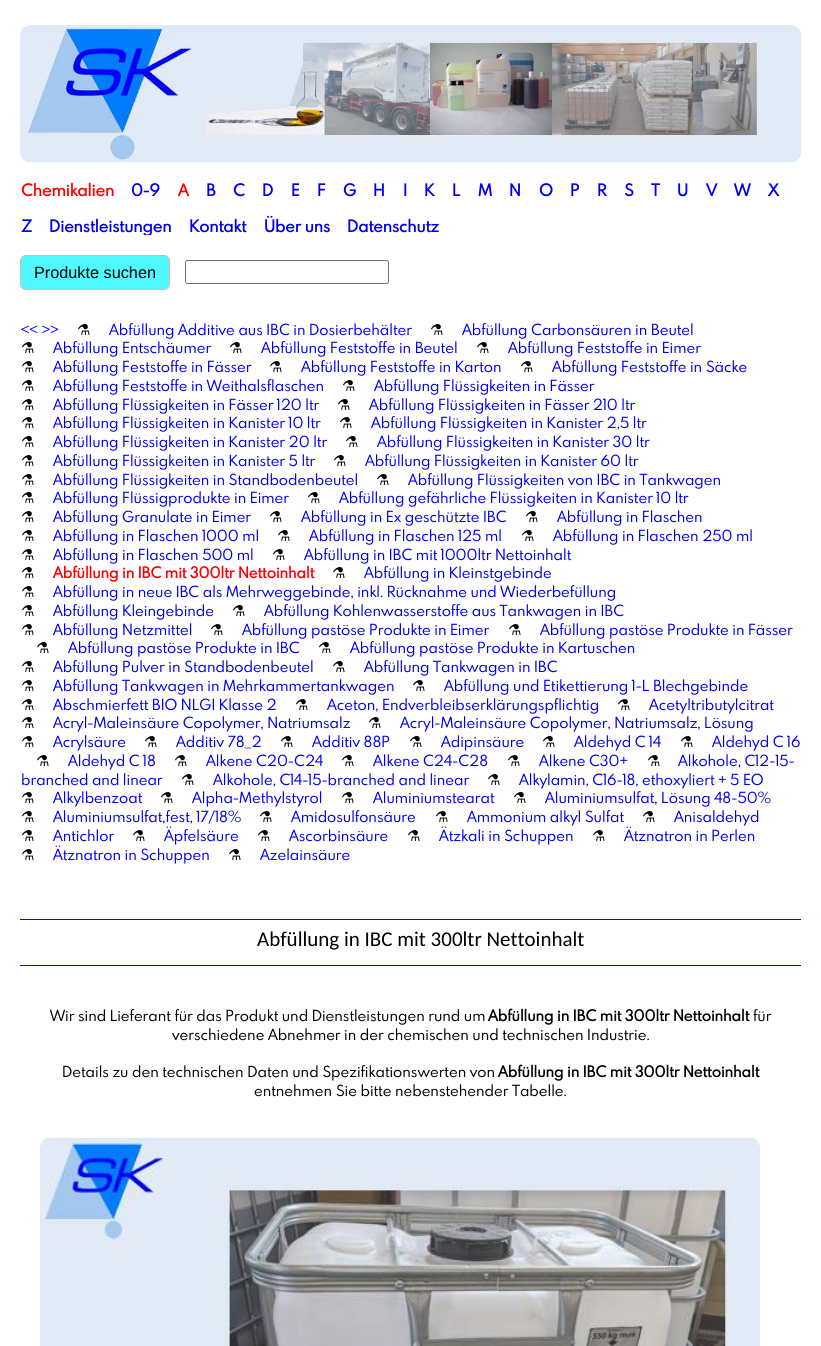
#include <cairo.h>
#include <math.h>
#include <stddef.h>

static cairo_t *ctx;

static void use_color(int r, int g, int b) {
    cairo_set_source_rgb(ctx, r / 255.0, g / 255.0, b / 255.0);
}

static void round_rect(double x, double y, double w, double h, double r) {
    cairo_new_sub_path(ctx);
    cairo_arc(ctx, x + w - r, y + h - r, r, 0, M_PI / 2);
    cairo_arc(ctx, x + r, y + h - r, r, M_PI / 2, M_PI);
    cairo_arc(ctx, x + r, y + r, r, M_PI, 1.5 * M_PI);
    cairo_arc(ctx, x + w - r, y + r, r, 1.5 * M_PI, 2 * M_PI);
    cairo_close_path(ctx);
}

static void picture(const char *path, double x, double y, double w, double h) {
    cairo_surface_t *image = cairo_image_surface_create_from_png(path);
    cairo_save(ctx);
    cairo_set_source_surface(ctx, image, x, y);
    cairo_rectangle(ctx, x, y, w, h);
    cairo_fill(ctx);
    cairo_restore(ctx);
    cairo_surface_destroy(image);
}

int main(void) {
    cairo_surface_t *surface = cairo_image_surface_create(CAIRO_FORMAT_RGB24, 821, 1346);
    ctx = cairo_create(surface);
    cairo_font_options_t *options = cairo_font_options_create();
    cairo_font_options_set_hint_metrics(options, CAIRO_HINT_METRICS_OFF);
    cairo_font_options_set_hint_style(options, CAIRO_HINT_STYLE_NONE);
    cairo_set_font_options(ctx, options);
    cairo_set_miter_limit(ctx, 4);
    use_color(255, 255, 255);
    cairo_paint(ctx);
    picture("img1.png", 20, 25, 781, 138);
    cairo_select_font_face(ctx, "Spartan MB", CAIRO_FONT_SLANT_NORMAL, CAIRO_FONT_WEIGHT_BOLD);
    cairo_set_font_size(ctx, 16.25);
    use_color(255, 0, 0);
    cairo_move_to(ctx, 21, 196);
    cairo_show_text(ctx, "Chemikalien");
    use_color(0, 0, 238);
    cairo_move_to(ctx, 131, 196);
    cairo_show_text(ctx, "0-9");
    use_color(255, 0, 0);
    cairo_move_to(ctx, 178, 196);
    cairo_show_text(ctx, "A");
    use_color(0, 0, 238);
    cairo_move_to(ctx, 206, 196);
    cairo_show_text(ctx, "B");
    cairo_move_to(ctx, 233, 196);
    cairo_show_text(ctx, "C");
    cairo_move_to(ctx, 262, 196);
    cairo_show_text(ctx, "D");
    cairo_move_to(ctx, 291, 196);
    cairo_show_text(ctx, "E");
    cairo_move_to(ctx, 317, 196);
    cairo_show_text(ctx, "F");
    cairo_move_to(ctx, 343, 196);
    cairo_show_text(ctx, "G");
    cairo_move_to(ctx, 373, 196);
    cairo_show_text(ctx, "H");
    cairo_move_to(ctx, 403, 196);
    cairo_show_text(ctx, "I");
    cairo_move_to(ctx, 424, 196);
    cairo_show_text(ctx, "K");
    cairo_move_to(ctx, 452, 196);
    cairo_show_text(ctx, "L");
    cairo_move_to(ctx, 478, 196);
    cairo_show_text(ctx, "M");
    cairo_move_to(ctx, 509, 196);
    cairo_show_text(ctx, "N");
    cairo_move_to(ctx, 539, 196);
    cairo_show_text(ctx, "O");
    cairo_move_to(ctx, 570, 196);
    cairo_show_text(ctx, "P");
    cairo_move_to(ctx, 597, 196);
    cairo_show_text(ctx, "R");
    cairo_move_to(ctx, 624, 196);
    cairo_show_text(ctx, "S");
    cairo_move_to(ctx, 651, 196);
    cairo_show_text(ctx, "T");
    cairo_move_to(ctx, 677, 196);
    cairo_show_text(ctx, "U");
    cairo_move_to(ctx, 706, 196);
    cairo_show_text(ctx, "V");
    cairo_move_to(ctx, 734, 196);
    cairo_show_text(ctx, "W");
    cairo_move_to(ctx, 768, 196);
    cairo_show_text(ctx, "X");
    cairo_move_to(ctx, 21, 232);
    cairo_show_text(ctx, "Z");
    cairo_move_to(ctx, 49, 232);
    cairo_show_text(ctx, "Dienstleistungen");
    cairo_move_to(ctx, 189, 232);
    cairo_show_text(ctx, "Kontakt");
    cairo_move_to(ctx, 264, 232);
    cairo_show_text(ctx, "Über uns");
    cairo_move_to(ctx, 347, 232);
    cairo_show_text(ctx, "Datenschutz");
    use_color(255, 255, 255);
    cairo_rectangle(ctx, 144, 235, 7, 2);
    cairo_fill(ctx);
    use_color(79, 249, 255);
    round_rect(20.5, 255.5, 149, 34, 5.5);
    cairo_fill_preserve(ctx);
    use_color(192, 192, 192);
    cairo_set_line_width(ctx, 1);
    cairo_stroke(ctx);
    cairo_select_font_face(ctx, "Liberation Sans", CAIRO_FONT_SLANT_NORMAL, CAIRO_FONT_WEIGHT_NORMAL);
    use_color(0, 0, 0);
    cairo_move_to(ctx, 34, 278);
    cairo_show_text(ctx, "Produkte suchen");
    round_rect(185.5, 260.5, 203, 23, 2);
    use_color(118, 118, 118);
    cairo_stroke(ctx);
    cairo_select_font_face(ctx, "Spartan MB", CAIRO_FONT_SLANT_NORMAL, CAIRO_FONT_WEIGHT_NORMAL);
    cairo_set_font_size(ctx, 15);
    use_color(0, 0, 238);
    cairo_move_to(ctx, 21, 335);
    cairo_show_text(ctx, "<< >>");
    cairo_select_font_face(ctx, "DejaVu Sans", CAIRO_FONT_SLANT_NORMAL, CAIRO_FONT_WEIGHT_NORMAL);
    use_color(0, 0, 0);
    cairo_move_to(ctx, 77, 335);
    cairo_show_text(ctx, "⚗");
    cairo_select_font_face(ctx, "Spartan MB", CAIRO_FONT_SLANT_NORMAL, CAIRO_FONT_WEIGHT_NORMAL);
    use_color(0, 0, 238);
    cairo_move_to(ctx, 109, 335);
    cairo_show_text(ctx, "Abfüllung Additive aus IBC in Dosierbehälter");
    cairo_select_font_face(ctx, "DejaVu Sans", CAIRO_FONT_SLANT_NORMAL, CAIRO_FONT_WEIGHT_NORMAL);
    use_color(0, 0, 0);
    cairo_move_to(ctx, 430, 335);
    cairo_show_text(ctx, "⚗");
    cairo_select_font_face(ctx, "Spartan MB", CAIRO_FONT_SLANT_NORMAL, CAIRO_FONT_WEIGHT_NORMAL);
    use_color(0, 0, 238);
    cairo_move_to(ctx, 462, 335);
    cairo_show_text(ctx, "Abfüllung Carbonsäuren in Beutel");
    cairo_select_font_face(ctx, "DejaVu Sans", CAIRO_FONT_SLANT_NORMAL, CAIRO_FONT_WEIGHT_NORMAL);
    use_color(0, 0, 0);
    cairo_move_to(ctx, 21, 353);
    cairo_show_text(ctx, "⚗");
    cairo_select_font_face(ctx, "Spartan MB", CAIRO_FONT_SLANT_NORMAL, CAIRO_FONT_WEIGHT_NORMAL);
    use_color(0, 0, 238);
    cairo_move_to(ctx, 53, 353);
    cairo_show_text(ctx, "Abfüllung Entschäumer");
    cairo_select_font_face(ctx, "DejaVu Sans", CAIRO_FONT_SLANT_NORMAL, CAIRO_FONT_WEIGHT_NORMAL);
    use_color(0, 0, 0);
    cairo_move_to(ctx, 229, 353);
    cairo_show_text(ctx, "⚗");
    cairo_select_font_face(ctx, "Spartan MB", CAIRO_FONT_SLANT_NORMAL, CAIRO_FONT_WEIGHT_NORMAL);
    use_color(0, 0, 238);
    cairo_move_to(ctx, 261, 353);
    cairo_show_text(ctx, "Abfüllung Feststoffe in Beutel");
    cairo_select_font_face(ctx, "DejaVu Sans", CAIRO_FONT_SLANT_NORMAL, CAIRO_FONT_WEIGHT_NORMAL);
    use_color(0, 0, 0);
    cairo_move_to(ctx, 476, 353);
    cairo_show_text(ctx, "⚗");
    cairo_select_font_face(ctx, "Spartan MB", CAIRO_FONT_SLANT_NORMAL, CAIRO_FONT_WEIGHT_NORMAL);
    use_color(0, 0, 238);
    cairo_move_to(ctx, 508, 353);
    cairo_show_text(ctx, "Abfüllung Feststoffe in Eimer");
    cairo_select_font_face(ctx, "DejaVu Sans", CAIRO_FONT_SLANT_NORMAL, CAIRO_FONT_WEIGHT_NORMAL);
    use_color(0, 0, 0);
    cairo_move_to(ctx, 21, 372);
    cairo_show_text(ctx, "⚗");
    cairo_select_font_face(ctx, "Spartan MB", CAIRO_FONT_SLANT_NORMAL, CAIRO_FONT_WEIGHT_NORMAL);
    use_color(0, 0, 238);
    cairo_move_to(ctx, 53, 372);
    cairo_show_text(ctx, "Abfüllung Feststoffe in Fässer");
    cairo_select_font_face(ctx, "DejaVu Sans", CAIRO_FONT_SLANT_NORMAL, CAIRO_FONT_WEIGHT_NORMAL);
    use_color(0, 0, 0);
    cairo_move_to(ctx, 269, 372);
    cairo_show_text(ctx, "⚗");
    cairo_select_font_face(ctx, "Spartan MB", CAIRO_FONT_SLANT_NORMAL, CAIRO_FONT_WEIGHT_NORMAL);
    use_color(0, 0, 238);
    cairo_move_to(ctx, 301, 372);
    cairo_show_text(ctx, "Abfüllung Feststoffe in Karton");
    cairo_select_font_face(ctx, "DejaVu Sans", CAIRO_FONT_SLANT_NORMAL, CAIRO_FONT_WEIGHT_NORMAL);
    use_color(0, 0, 0);
    cairo_move_to(ctx, 520, 372);
    cairo_show_text(ctx, "⚗");
    cairo_select_font_face(ctx, "Spartan MB", CAIRO_FONT_SLANT_NORMAL, CAIRO_FONT_WEIGHT_NORMAL);
    use_color(0, 0, 238);
    cairo_move_to(ctx, 552, 372);
    cairo_show_text(ctx, "Abfüllung Feststoffe in Säcke");
    cairo_select_font_face(ctx, "DejaVu Sans", CAIRO_FONT_SLANT_NORMAL, CAIRO_FONT_WEIGHT_NORMAL);
    use_color(0, 0, 0);
    cairo_move_to(ctx, 21, 391);
    cairo_show_text(ctx, "⚗");
    cairo_select_font_face(ctx, "Spartan MB", CAIRO_FONT_SLANT_NORMAL, CAIRO_FONT_WEIGHT_NORMAL);
    use_color(0, 0, 238);
    cairo_move_to(ctx, 53, 391);
    cairo_show_text(ctx, "Abfüllung Feststoffe in Weithalsflaschen");
    cairo_select_font_face(ctx, "DejaVu Sans", CAIRO_FONT_SLANT_NORMAL, CAIRO_FONT_WEIGHT_NORMAL);
    use_color(0, 0, 0);
    cairo_move_to(ctx, 342, 391);
    cairo_show_text(ctx, "⚗");
    cairo_select_font_face(ctx, "Spartan MB", CAIRO_FONT_SLANT_NORMAL, CAIRO_FONT_WEIGHT_NORMAL);
    use_color(0, 0, 238);
    cairo_move_to(ctx, 374, 391);
    cairo_show_text(ctx, "Abfüllung Flüssigkeiten in Fässer");
    cairo_select_font_face(ctx, "DejaVu Sans", CAIRO_FONT_SLANT_NORMAL, CAIRO_FONT_WEIGHT_NORMAL);
    use_color(0, 0, 0);
    cairo_move_to(ctx, 21, 410);
    cairo_show_text(ctx, "⚗");
    cairo_select_font_face(ctx, "Spartan MB", CAIRO_FONT_SLANT_NORMAL, CAIRO_FONT_WEIGHT_NORMAL);
    use_color(0, 0, 238);
    cairo_move_to(ctx, 53, 410);
    cairo_show_text(ctx, "Abfüllung Flüssigkeiten in Fässer 120 ltr");
    cairo_select_font_face(ctx, "DejaVu Sans", CAIRO_FONT_SLANT_NORMAL, CAIRO_FONT_WEIGHT_NORMAL);
    use_color(0, 0, 0);
    cairo_move_to(ctx, 337, 410);
    cairo_show_text(ctx, "⚗");
    cairo_select_font_face(ctx, "Spartan MB", CAIRO_FONT_SLANT_NORMAL, CAIRO_FONT_WEIGHT_NORMAL);
    use_color(0, 0, 238);
    cairo_move_to(ctx, 369, 410);
    cairo_show_text(ctx, "Abfüllung Flüssigkeiten in Fässer 210 ltr");
    cairo_select_font_face(ctx, "DejaVu Sans", CAIRO_FONT_SLANT_NORMAL, CAIRO_FONT_WEIGHT_NORMAL);
    use_color(0, 0, 0);
    cairo_move_to(ctx, 21, 428);
    cairo_show_text(ctx, "⚗");
    cairo_select_font_face(ctx, "Spartan MB", CAIRO_FONT_SLANT_NORMAL, CAIRO_FONT_WEIGHT_NORMAL);
    use_color(0, 0, 238);
    cairo_move_to(ctx, 53, 428);
    cairo_show_text(ctx, "Abfüllung Flüssigkeiten in Kanister 10 ltr");
    cairo_select_font_face(ctx, "DejaVu Sans", CAIRO_FONT_SLANT_NORMAL, CAIRO_FONT_WEIGHT_NORMAL);
    use_color(0, 0, 0);
    cairo_move_to(ctx, 339, 428);
    cairo_show_text(ctx, "⚗");
    cairo_select_font_face(ctx, "Spartan MB", CAIRO_FONT_SLANT_NORMAL, CAIRO_FONT_WEIGHT_NORMAL);
    use_color(0, 0, 238);
    cairo_move_to(ctx, 371, 428);
    cairo_show_text(ctx, "Abfüllung Flüssigkeiten in Kanister 2,5 ltr");
    cairo_select_font_face(ctx, "DejaVu Sans", CAIRO_FONT_SLANT_NORMAL, CAIRO_FONT_WEIGHT_NORMAL);
    use_color(0, 0, 0);
    cairo_move_to(ctx, 21, 447);
    cairo_show_text(ctx, "⚗");
    cairo_select_font_face(ctx, "Spartan MB", CAIRO_FONT_SLANT_NORMAL, CAIRO_FONT_WEIGHT_NORMAL);
    use_color(0, 0, 238);
    cairo_move_to(ctx, 53, 447);
    cairo_show_text(ctx, "Abfüllung Flüssigkeiten in Kanister 20 ltr");
    cairo_select_font_face(ctx, "DejaVu Sans", CAIRO_FONT_SLANT_NORMAL, CAIRO_FONT_WEIGHT_NORMAL);
    use_color(0, 0, 0);
    cairo_move_to(ctx, 345, 447);
    cairo_show_text(ctx, "⚗");
    cairo_select_font_face(ctx, "Spartan MB", CAIRO_FONT_SLANT_NORMAL, CAIRO_FONT_WEIGHT_NORMAL);
    use_color(0, 0, 238);
    cairo_move_to(ctx, 377, 447);
    cairo_show_text(ctx, "Abfüllung Flüssigkeiten in Kanister 30 ltr");
    cairo_select_font_face(ctx, "DejaVu Sans", CAIRO_FONT_SLANT_NORMAL, CAIRO_FONT_WEIGHT_NORMAL);
    use_color(0, 0, 0);
    cairo_move_to(ctx, 21, 466);
    cairo_show_text(ctx, "⚗");
    cairo_select_font_face(ctx, "Spartan MB", CAIRO_FONT_SLANT_NORMAL, CAIRO_FONT_WEIGHT_NORMAL);
    use_color(0, 0, 238);
    cairo_move_to(ctx, 53, 466);
    cairo_show_text(ctx, "Abfüllung Flüssigkeiten in Kanister 5 ltr");
    cairo_select_font_face(ctx, "DejaVu Sans", CAIRO_FONT_SLANT_NORMAL, CAIRO_FONT_WEIGHT_NORMAL);
    use_color(0, 0, 0);
    cairo_move_to(ctx, 333, 466);
    cairo_show_text(ctx, "⚗");
    cairo_select_font_face(ctx, "Spartan MB", CAIRO_FONT_SLANT_NORMAL, CAIRO_FONT_WEIGHT_NORMAL);
    use_color(0, 0, 238);
    cairo_move_to(ctx, 365, 466);
    cairo_show_text(ctx, "Abfüllung Flüssigkeiten in Kanister 60 ltr");
    cairo_select_font_face(ctx, "DejaVu Sans", CAIRO_FONT_SLANT_NORMAL, CAIRO_FONT_WEIGHT_NORMAL);
    use_color(0, 0, 0);
    cairo_move_to(ctx, 21, 485);
    cairo_show_text(ctx, "⚗");
    cairo_select_font_face(ctx, "Spartan MB", CAIRO_FONT_SLANT_NORMAL, CAIRO_FONT_WEIGHT_NORMAL);
    use_color(0, 0, 238);
    cairo_move_to(ctx, 53, 485);
    cairo_show_text(ctx, "Abfüllung Flüssigkeiten in Standbodenbeutel");
    cairo_select_font_face(ctx, "DejaVu Sans", CAIRO_FONT_SLANT_NORMAL, CAIRO_FONT_WEIGHT_NORMAL);
    use_color(0, 0, 0);
    cairo_move_to(ctx, 376, 485);
    cairo_show_text(ctx, "⚗");
    cairo_select_font_face(ctx, "Spartan MB", CAIRO_FONT_SLANT_NORMAL, CAIRO_FONT_WEIGHT_NORMAL);
    use_color(0, 0, 238);
    cairo_move_to(ctx, 408, 485);
    cairo_show_text(ctx, "Abfüllung Flüssigkeiten von IBC in Tankwagen");
    cairo_select_font_face(ctx, "DejaVu Sans", CAIRO_FONT_SLANT_NORMAL, CAIRO_FONT_WEIGHT_NORMAL);
    use_color(0, 0, 0);
    cairo_move_to(ctx, 21, 503);
    cairo_show_text(ctx, "⚗");
    cairo_select_font_face(ctx, "Spartan MB", CAIRO_FONT_SLANT_NORMAL, CAIRO_FONT_WEIGHT_NORMAL);
    use_color(0, 0, 238);
    cairo_move_to(ctx, 53, 503);
    cairo_show_text(ctx, "Abfüllung Flüssigprodukte in Eimer");
    cairo_select_font_face(ctx, "DejaVu Sans", CAIRO_FONT_SLANT_NORMAL, CAIRO_FONT_WEIGHT_NORMAL);
    use_color(0, 0, 0);
    cairo_move_to(ctx, 307, 503);
    cairo_show_text(ctx, "⚗");
    cairo_select_font_face(ctx, "Spartan MB", CAIRO_FONT_SLANT_NORMAL, CAIRO_FONT_WEIGHT_NORMAL);
    use_color(0, 0, 238);
    cairo_move_to(ctx, 339, 503);
    cairo_show_text(ctx, "Abfüllung gefährliche Flüssigkeiten in Kanister 10 ltr");
    cairo_select_font_face(ctx, "DejaVu Sans", CAIRO_FONT_SLANT_NORMAL, CAIRO_FONT_WEIGHT_NORMAL);
    use_color(0, 0, 0);
    cairo_move_to(ctx, 21, 522);
    cairo_show_text(ctx, "⚗");
    cairo_select_font_face(ctx, "Spartan MB", CAIRO_FONT_SLANT_NORMAL, CAIRO_FONT_WEIGHT_NORMAL);
    use_color(0, 0, 238);
    cairo_move_to(ctx, 53, 522);
    cairo_show_text(ctx, "Abfüllung Granulate in Eimer");
    cairo_select_font_face(ctx, "DejaVu Sans", CAIRO_FONT_SLANT_NORMAL, CAIRO_FONT_WEIGHT_NORMAL);
    use_color(0, 0, 0);
    cairo_move_to(ctx, 269, 522);
    cairo_show_text(ctx, "⚗");
    cairo_select_font_face(ctx, "Spartan MB", CAIRO_FONT_SLANT_NORMAL, CAIRO_FONT_WEIGHT_NORMAL);
    use_color(0, 0, 238);
    cairo_move_to(ctx, 301, 522);
    cairo_show_text(ctx, "Abfüllung in Ex geschützte IBC");
    cairo_select_font_face(ctx, "DejaVu Sans", CAIRO_FONT_SLANT_NORMAL, CAIRO_FONT_WEIGHT_NORMAL);
    use_color(0, 0, 0);
    cairo_move_to(ctx, 525, 522);
    cairo_show_text(ctx, "⚗");
    cairo_select_font_face(ctx, "Spartan MB", CAIRO_FONT_SLANT_NORMAL, CAIRO_FONT_WEIGHT_NORMAL);
    use_color(0, 0, 238);
    cairo_move_to(ctx, 557, 522);
    cairo_show_text(ctx, "Abfüllung in Flaschen");
    cairo_select_font_face(ctx, "DejaVu Sans", CAIRO_FONT_SLANT_NORMAL, CAIRO_FONT_WEIGHT_NORMAL);
    use_color(0, 0, 0);
    cairo_move_to(ctx, 21, 541);
    cairo_show_text(ctx, "⚗");
    cairo_select_font_face(ctx, "Spartan MB", CAIRO_FONT_SLANT_NORMAL, CAIRO_FONT_WEIGHT_NORMAL);
    use_color(0, 0, 238);
    cairo_move_to(ctx, 53, 541);
    cairo_show_text(ctx, "Abfüllung in Flaschen 1000 ml");
    cairo_select_font_face(ctx, "DejaVu Sans", CAIRO_FONT_SLANT_NORMAL, CAIRO_FONT_WEIGHT_NORMAL);
    use_color(0, 0, 0);
    cairo_move_to(ctx, 277, 541);
    cairo_show_text(ctx, "⚗");
    cairo_select_font_face(ctx, "Spartan MB", CAIRO_FONT_SLANT_NORMAL, CAIRO_FONT_WEIGHT_NORMAL);
    use_color(0, 0, 238);
    cairo_move_to(ctx, 309, 541);
    cairo_show_text(ctx, "Abfüllung in Flaschen 125 ml");
    cairo_select_font_face(ctx, "DejaVu Sans", CAIRO_FONT_SLANT_NORMAL, CAIRO_FONT_WEIGHT_NORMAL);
    use_color(0, 0, 0);
    cairo_move_to(ctx, 521, 541);
    cairo_show_text(ctx, "⚗");
    cairo_select_font_face(ctx, "Spartan MB", CAIRO_FONT_SLANT_NORMAL, CAIRO_FONT_WEIGHT_NORMAL);
    use_color(0, 0, 238);
    cairo_move_to(ctx, 553, 541);
    cairo_show_text(ctx, "Abfüllung in Flaschen 250 ml");
    cairo_select_font_face(ctx, "DejaVu Sans", CAIRO_FONT_SLANT_NORMAL, CAIRO_FONT_WEIGHT_NORMAL);
    use_color(0, 0, 0);
    cairo_move_to(ctx, 21, 560);
    cairo_show_text(ctx, "⚗");
    cairo_select_font_face(ctx, "Spartan MB", CAIRO_FONT_SLANT_NORMAL, CAIRO_FONT_WEIGHT_NORMAL);
    use_color(0, 0, 238);
    cairo_move_to(ctx, 53, 560);
    cairo_show_text(ctx, "Abfüllung in Flaschen 500 ml");
    cairo_select_font_face(ctx, "DejaVu Sans", CAIRO_FONT_SLANT_NORMAL, CAIRO_FONT_WEIGHT_NORMAL);
    use_color(0, 0, 0);
    cairo_move_to(ctx, 272, 560);
    cairo_show_text(ctx, "⚗");
    cairo_select_font_face(ctx, "Spartan MB", CAIRO_FONT_SLANT_NORMAL, CAIRO_FONT_WEIGHT_NORMAL);
    use_color(0, 0, 238);
    cairo_move_to(ctx, 304, 560);
    cairo_show_text(ctx, "Abfüllung in IBC mit 1000ltr Nettoinhalt");
    cairo_select_font_face(ctx, "DejaVu Sans", CAIRO_FONT_SLANT_NORMAL, CAIRO_FONT_WEIGHT_NORMAL);
    use_color(0, 0, 0);
    cairo_move_to(ctx, 21, 578);
    cairo_show_text(ctx, "⚗");
    cairo_select_font_face(ctx, "Spartan MB", CAIRO_FONT_SLANT_NORMAL, CAIRO_FONT_WEIGHT_BOLD);
    use_color(255, 0, 0);
    cairo_move_to(ctx, 53, 578);
    cairo_show_text(ctx, "Abfüllung in IBC mit 300ltr Nettoinhalt");
    cairo_select_font_face(ctx, "DejaVu Sans", CAIRO_FONT_SLANT_NORMAL, CAIRO_FONT_WEIGHT_NORMAL);
    use_color(0, 0, 0);
    cairo_move_to(ctx, 332, 578);
    cairo_show_text(ctx, "⚗");
    cairo_select_font_face(ctx, "Spartan MB", CAIRO_FONT_SLANT_NORMAL, CAIRO_FONT_WEIGHT_NORMAL);
    use_color(0, 0, 238);
    cairo_move_to(ctx, 364, 578);
    cairo_show_text(ctx, "Abfüllung in Kleinstgebinde");
    cairo_select_font_face(ctx, "DejaVu Sans", CAIRO_FONT_SLANT_NORMAL, CAIRO_FONT_WEIGHT_NORMAL);
    use_color(0, 0, 0);
    cairo_move_to(ctx, 21, 597);
    cairo_show_text(ctx, "⚗");
    cairo_select_font_face(ctx, "Spartan MB", CAIRO_FONT_SLANT_NORMAL, CAIRO_FONT_WEIGHT_NORMAL);
    use_color(0, 0, 238);
    cairo_move_to(ctx, 53, 597);
    cairo_show_text(ctx, "Abfüllung in neue IBC als Mehrweggebinde, inkl. Rücknahme und Wiederbefüllung");
    cairo_select_font_face(ctx, "DejaVu Sans", CAIRO_FONT_SLANT_NORMAL, CAIRO_FONT_WEIGHT_NORMAL);
    use_color(0, 0, 0);
    cairo_move_to(ctx, 21, 616);
    cairo_show_text(ctx, "⚗");
    cairo_select_font_face(ctx, "Spartan MB", CAIRO_FONT_SLANT_NORMAL, CAIRO_FONT_WEIGHT_NORMAL);
    use_color(0, 0, 238);
    cairo_move_to(ctx, 53, 616);
    cairo_show_text(ctx, "Abfüllung Kleingebinde");
    cairo_select_font_face(ctx, "DejaVu Sans", CAIRO_FONT_SLANT_NORMAL, CAIRO_FONT_WEIGHT_NORMAL);
    use_color(0, 0, 0);
    cairo_move_to(ctx, 232, 616);
    cairo_show_text(ctx, "⚗");
    cairo_select_font_face(ctx, "Spartan MB", CAIRO_FONT_SLANT_NORMAL, CAIRO_FONT_WEIGHT_NORMAL);
    use_color(0, 0, 238);
    cairo_move_to(ctx, 264, 616);
    cairo_show_text(ctx, "Abfüllung Kohlenwasserstoffe aus Tankwagen in IBC");
    cairo_select_font_face(ctx, "DejaVu Sans", CAIRO_FONT_SLANT_NORMAL, CAIRO_FONT_WEIGHT_NORMAL);
    use_color(0, 0, 0);
    cairo_move_to(ctx, 21, 635);
    cairo_show_text(ctx, "⚗");
    cairo_select_font_face(ctx, "Spartan MB", CAIRO_FONT_SLANT_NORMAL, CAIRO_FONT_WEIGHT_NORMAL);
    use_color(0, 0, 238);
    cairo_move_to(ctx, 53, 635);
    cairo_show_text(ctx, "Abfüllung Netzmittel");
    cairo_select_font_face(ctx, "DejaVu Sans", CAIRO_FONT_SLANT_NORMAL, CAIRO_FONT_WEIGHT_NORMAL);
    use_color(0, 0, 0);
    cairo_move_to(ctx, 210, 635);
    cairo_show_text(ctx, "⚗");
    cairo_select_font_face(ctx, "Spartan MB", CAIRO_FONT_SLANT_NORMAL, CAIRO_FONT_WEIGHT_NORMAL);
    use_color(0, 0, 238);
    cairo_move_to(ctx, 242, 635);
    cairo_show_text(ctx, "Abfüllung pastöse Produkte in Eimer");
    cairo_select_font_face(ctx, "DejaVu Sans", CAIRO_FONT_SLANT_NORMAL, CAIRO_FONT_WEIGHT_NORMAL);
    use_color(0, 0, 0);
    cairo_move_to(ctx, 508, 635);
    cairo_show_text(ctx, "⚗");
    cairo_select_font_face(ctx, "Spartan MB", CAIRO_FONT_SLANT_NORMAL, CAIRO_FONT_WEIGHT_NORMAL);
    use_color(0, 0, 238);
    cairo_move_to(ctx, 540, 635);
    cairo_show_text(ctx, "Abfüllung pastöse Produkte in Fässer");
    cairo_select_font_face(ctx, "DejaVu Sans", CAIRO_FONT_SLANT_NORMAL, CAIRO_FONT_WEIGHT_NORMAL);
    use_color(0, 0, 0);
    cairo_move_to(ctx, 36, 653);
    cairo_show_text(ctx, "⚗");
    cairo_select_font_face(ctx, "Spartan MB", CAIRO_FONT_SLANT_NORMAL, CAIRO_FONT_WEIGHT_NORMAL);
    use_color(0, 0, 238);
    cairo_move_to(ctx, 68, 653);
    cairo_show_text(ctx, "Abfüllung pastöse Produkte in IBC");
    cairo_select_font_face(ctx, "DejaVu Sans", CAIRO_FONT_SLANT_NORMAL, CAIRO_FONT_WEIGHT_NORMAL);
    use_color(0, 0, 0);
    cairo_move_to(ctx, 318, 653);
    cairo_show_text(ctx, "⚗");
    cairo_select_font_face(ctx, "Spartan MB", CAIRO_FONT_SLANT_NORMAL, CAIRO_FONT_WEIGHT_NORMAL);
    use_color(0, 0, 238);
    cairo_move_to(ctx, 350, 653);
    cairo_show_text(ctx, "Abfüllung pastöse Produkte in Kartuschen");
    cairo_select_font_face(ctx, "DejaVu Sans", CAIRO_FONT_SLANT_NORMAL, CAIRO_FONT_WEIGHT_NORMAL);
    use_color(0, 0, 0);
    cairo_move_to(ctx, 21, 672);
    cairo_show_text(ctx, "⚗");
    cairo_select_font_face(ctx, "Spartan MB", CAIRO_FONT_SLANT_NORMAL, CAIRO_FONT_WEIGHT_NORMAL);
    use_color(0, 0, 238);
    cairo_move_to(ctx, 53, 672);
    cairo_show_text(ctx, "Abfüllung Pulver in Standbodenbeutel");
    cairo_select_font_face(ctx, "DejaVu Sans", CAIRO_FONT_SLANT_NORMAL, CAIRO_FONT_WEIGHT_NORMAL);
    use_color(0, 0, 0);
    cairo_move_to(ctx, 332, 672);
    cairo_show_text(ctx, "⚗");
    cairo_select_font_face(ctx, "Spartan MB", CAIRO_FONT_SLANT_NORMAL, CAIRO_FONT_WEIGHT_NORMAL);
    use_color(0, 0, 238);
    cairo_move_to(ctx, 364, 672);
    cairo_show_text(ctx, "Abfüllung Tankwagen in IBC");
    cairo_select_font_face(ctx, "DejaVu Sans", CAIRO_FONT_SLANT_NORMAL, CAIRO_FONT_WEIGHT_NORMAL);
    use_color(0, 0, 0);
    cairo_move_to(ctx, 21, 691);
    cairo_show_text(ctx, "⚗");
    cairo_select_font_face(ctx, "Spartan MB", CAIRO_FONT_SLANT_NORMAL, CAIRO_FONT_WEIGHT_NORMAL);
    use_color(0, 0, 238);
    cairo_move_to(ctx, 53, 691);
    cairo_show_text(ctx, "Abfüllung Tankwagen in Mehrkammertankwagen");
    cairo_select_font_face(ctx, "DejaVu Sans", CAIRO_FONT_SLANT_NORMAL, CAIRO_FONT_WEIGHT_NORMAL);
    use_color(0, 0, 0);
    cairo_move_to(ctx, 412, 691);
    cairo_show_text(ctx, "⚗");
    cairo_select_font_face(ctx, "Spartan MB", CAIRO_FONT_SLANT_NORMAL, CAIRO_FONT_WEIGHT_NORMAL);
    use_color(0, 0, 238);
    cairo_move_to(ctx, 444, 691);
    cairo_show_text(ctx, "Abfüllung und Etikettierung 1-L Blechgebinde");
    cairo_select_font_face(ctx, "DejaVu Sans", CAIRO_FONT_SLANT_NORMAL, CAIRO_FONT_WEIGHT_NORMAL);
    use_color(0, 0, 0);
    cairo_move_to(ctx, 21, 710);
    cairo_show_text(ctx, "⚗");
    cairo_select_font_face(ctx, "Spartan MB", CAIRO_FONT_SLANT_NORMAL, CAIRO_FONT_WEIGHT_NORMAL);
    use_color(0, 0, 238);
    cairo_move_to(ctx, 53, 710);
    cairo_show_text(ctx, "Abschmierfett BIO NLGI Klasse 2");
    cairo_select_font_face(ctx, "DejaVu Sans", CAIRO_FONT_SLANT_NORMAL, CAIRO_FONT_WEIGHT_NORMAL);
    use_color(0, 0, 0);
    cairo_move_to(ctx, 295, 710);
    cairo_show_text(ctx, "⚗");
    cairo_select_font_face(ctx, "Spartan MB", CAIRO_FONT_SLANT_NORMAL, CAIRO_FONT_WEIGHT_NORMAL);
    use_color(0, 0, 238);
    cairo_move_to(ctx, 327, 710);
    cairo_show_text(ctx, "Aceton, Endverbleibserklärungspflichtig");
    cairo_select_font_face(ctx, "DejaVu Sans", CAIRO_FONT_SLANT_NORMAL, CAIRO_FONT_WEIGHT_NORMAL);
    use_color(0, 0, 0);
    cairo_move_to(ctx, 617, 710);
    cairo_show_text(ctx, "⚗");
    cairo_select_font_face(ctx, "Spartan MB", CAIRO_FONT_SLANT_NORMAL, CAIRO_FONT_WEIGHT_NORMAL);
    use_color(0, 0, 238);
    cairo_move_to(ctx, 649, 710);
    cairo_show_text(ctx, "Acetyltributylcitrat");
    cairo_select_font_face(ctx, "DejaVu Sans", CAIRO_FONT_SLANT_NORMAL, CAIRO_FONT_WEIGHT_NORMAL);
    use_color(0, 0, 0);
    cairo_move_to(ctx, 21, 728);
    cairo_show_text(ctx, "⚗");
    cairo_select_font_face(ctx, "Spartan MB", CAIRO_FONT_SLANT_NORMAL, CAIRO_FONT_WEIGHT_NORMAL);
    use_color(0, 0, 238);
    cairo_move_to(ctx, 53, 728);
    cairo_show_text(ctx, "Acryl-Maleinsäure Copolymer, Natriumsalz");
    cairo_select_font_face(ctx, "DejaVu Sans", CAIRO_FONT_SLANT_NORMAL, CAIRO_FONT_WEIGHT_NORMAL);
    use_color(0, 0, 0);
    cairo_move_to(ctx, 368, 728);
    cairo_show_text(ctx, "⚗");
    cairo_select_font_face(ctx, "Spartan MB", CAIRO_FONT_SLANT_NORMAL, CAIRO_FONT_WEIGHT_NORMAL);
    use_color(0, 0, 238);
    cairo_move_to(ctx, 400, 728);
    cairo_show_text(ctx, "Acryl-Maleinsäure Copolymer, Natriumsalz, Lösung");
    cairo_select_font_face(ctx, "DejaVu Sans", CAIRO_FONT_SLANT_NORMAL, CAIRO_FONT_WEIGHT_NORMAL);
    use_color(0, 0, 0);
    cairo_move_to(ctx, 21, 747);
    cairo_show_text(ctx, "⚗");
    cairo_select_font_face(ctx, "Spartan MB", CAIRO_FONT_SLANT_NORMAL, CAIRO_FONT_WEIGHT_NORMAL);
    use_color(0, 0, 238);
    cairo_move_to(ctx, 53, 747);
    cairo_show_text(ctx, "Acrylsäure");
    cairo_select_font_face(ctx, "DejaVu Sans", CAIRO_FONT_SLANT_NORMAL, CAIRO_FONT_WEIGHT_NORMAL);
    use_color(0, 0, 0);
    cairo_move_to(ctx, 144, 747);
    cairo_show_text(ctx, "⚗");
    cairo_select_font_face(ctx, "Spartan MB", CAIRO_FONT_SLANT_NORMAL, CAIRO_FONT_WEIGHT_NORMAL);
    use_color(0, 0, 238);
    cairo_move_to(ctx, 176, 747);
    cairo_show_text(ctx, "Additiv 78_2");
    cairo_select_font_face(ctx, "DejaVu Sans", CAIRO_FONT_SLANT_NORMAL, CAIRO_FONT_WEIGHT_NORMAL);
    use_color(0, 0, 0);
    cairo_move_to(ctx, 280, 747);
    cairo_show_text(ctx, "⚗");
    cairo_select_font_face(ctx, "Spartan MB", CAIRO_FONT_SLANT_NORMAL, CAIRO_FONT_WEIGHT_NORMAL);
    use_color(0, 0, 238);
    cairo_move_to(ctx, 312, 747);
    cairo_show_text(ctx, "Additiv 88P");
    cairo_select_font_face(ctx, "DejaVu Sans", CAIRO_FONT_SLANT_NORMAL, CAIRO_FONT_WEIGHT_NORMAL);
    use_color(0, 0, 0);
    cairo_move_to(ctx, 409, 747);
    cairo_show_text(ctx, "⚗");
    cairo_select_font_face(ctx, "Spartan MB", CAIRO_FONT_SLANT_NORMAL, CAIRO_FONT_WEIGHT_NORMAL);
    use_color(0, 0, 238);
    cairo_move_to(ctx, 441, 747);
    cairo_show_text(ctx, "Adipinsäure");
    cairo_select_font_face(ctx, "DejaVu Sans", CAIRO_FONT_SLANT_NORMAL, CAIRO_FONT_WEIGHT_NORMAL);
    use_color(0, 0, 0);
    cairo_move_to(ctx, 542, 747);
    cairo_show_text(ctx, "⚗");
    cairo_select_font_face(ctx, "Spartan MB", CAIRO_FONT_SLANT_NORMAL, CAIRO_FONT_WEIGHT_NORMAL);
    use_color(0, 0, 238);
    cairo_move_to(ctx, 574, 747);
    cairo_show_text(ctx, "Aldehyd C 14");
    cairo_select_font_face(ctx, "DejaVu Sans", CAIRO_FONT_SLANT_NORMAL, CAIRO_FONT_WEIGHT_NORMAL);
    use_color(0, 0, 0);
    cairo_move_to(ctx, 680, 747);
    cairo_show_text(ctx, "⚗");
    cairo_select_font_face(ctx, "Spartan MB", CAIRO_FONT_SLANT_NORMAL, CAIRO_FONT_WEIGHT_NORMAL);
    use_color(0, 0, 238);
    cairo_move_to(ctx, 712, 747);
    cairo_show_text(ctx, "Aldehyd C 16");
    cairo_select_font_face(ctx, "DejaVu Sans", CAIRO_FONT_SLANT_NORMAL, CAIRO_FONT_WEIGHT_NORMAL);
    use_color(0, 0, 0);
    cairo_move_to(ctx, 36, 766);
    cairo_show_text(ctx, "⚗");
    cairo_select_font_face(ctx, "Spartan MB", CAIRO_FONT_SLANT_NORMAL, CAIRO_FONT_WEIGHT_NORMAL);
    use_color(0, 0, 238);
    cairo_move_to(ctx, 68, 766);
    cairo_show_text(ctx, "Aldehyd C 18");
    cairo_select_font_face(ctx, "DejaVu Sans", CAIRO_FONT_SLANT_NORMAL, CAIRO_FONT_WEIGHT_NORMAL);
    use_color(0, 0, 0);
    cairo_move_to(ctx, 174, 766);
    cairo_show_text(ctx, "⚗");
    cairo_select_font_face(ctx, "Spartan MB", CAIRO_FONT_SLANT_NORMAL, CAIRO_FONT_WEIGHT_NORMAL);
    use_color(0, 0, 238);
    cairo_move_to(ctx, 206, 766);
    cairo_show_text(ctx, "Alkene C20-C24");
    cairo_select_font_face(ctx, "DejaVu Sans", CAIRO_FONT_SLANT_NORMAL, CAIRO_FONT_WEIGHT_NORMAL);
    use_color(0, 0, 0);
    cairo_move_to(ctx, 341, 766);
    cairo_show_text(ctx, "⚗");
    cairo_select_font_face(ctx, "Spartan MB", CAIRO_FONT_SLANT_NORMAL, CAIRO_FONT_WEIGHT_NORMAL);
    use_color(0, 0, 238);
    cairo_move_to(ctx, 373, 766);
    cairo_show_text(ctx, "Alkene C24-C28");
    cairo_select_font_face(ctx, "DejaVu Sans", CAIRO_FONT_SLANT_NORMAL, CAIRO_FONT_WEIGHT_NORMAL);
    use_color(0, 0, 0);
    cairo_move_to(ctx, 507, 766);
    cairo_show_text(ctx, "⚗");
    cairo_select_font_face(ctx, "Spartan MB", CAIRO_FONT_SLANT_NORMAL, CAIRO_FONT_WEIGHT_NORMAL);
    use_color(0, 0, 238);
    cairo_move_to(ctx, 539, 766);
    cairo_show_text(ctx, "Alkene C30+");
    cairo_select_font_face(ctx, "DejaVu Sans", CAIRO_FONT_SLANT_NORMAL, CAIRO_FONT_WEIGHT_NORMAL);
    use_color(0, 0, 0);
    cairo_move_to(ctx, 647, 766);
    cairo_show_text(ctx, "⚗");
    cairo_select_font_face(ctx, "Spartan MB", CAIRO_FONT_SLANT_NORMAL, CAIRO_FONT_WEIGHT_NORMAL);
    use_color(0, 0, 238);
    cairo_move_to(ctx, 678, 766);
    cairo_show_text(ctx, "Alkohole, C12-15-");
    cairo_move_to(ctx, 21, 785);
    cairo_show_text(ctx, "branched and linear");
    cairo_select_font_face(ctx, "DejaVu Sans", CAIRO_FONT_SLANT_NORMAL, CAIRO_FONT_WEIGHT_NORMAL);
    use_color(0, 0, 0);
    cairo_move_to(ctx, 181, 785);
    cairo_show_text(ctx, "⚗");
    cairo_select_font_face(ctx, "Spartan MB", CAIRO_FONT_SLANT_NORMAL, CAIRO_FONT_WEIGHT_NORMAL);
    use_color(0, 0, 238);
    cairo_move_to(ctx, 213, 785);
    cairo_show_text(ctx, "Alkohole, C14-15-branched and linear");
    cairo_select_font_face(ctx, "DejaVu Sans", CAIRO_FONT_SLANT_NORMAL, CAIRO_FONT_WEIGHT_NORMAL);
    use_color(0, 0, 0);
    cairo_move_to(ctx, 487, 785);
    cairo_show_text(ctx, "⚗");
    cairo_select_font_face(ctx, "Spartan MB", CAIRO_FONT_SLANT_NORMAL, CAIRO_FONT_WEIGHT_NORMAL);
    use_color(0, 0, 238);
    cairo_move_to(ctx, 519, 785);
    cairo_show_text(ctx, "Alkylamin, C16-18, ethoxyliert + 5 EO");
    cairo_select_font_face(ctx, "DejaVu Sans", CAIRO_FONT_SLANT_NORMAL, CAIRO_FONT_WEIGHT_NORMAL);
    use_color(0, 0, 0);
    cairo_move_to(ctx, 21, 803);
    cairo_show_text(ctx, "⚗");
    cairo_select_font_face(ctx, "Spartan MB", CAIRO_FONT_SLANT_NORMAL, CAIRO_FONT_WEIGHT_NORMAL);
    use_color(0, 0, 238);
    cairo_move_to(ctx, 53, 803);
    cairo_show_text(ctx, "Alkylbenzoat");
    cairo_select_font_face(ctx, "DejaVu Sans", CAIRO_FONT_SLANT_NORMAL, CAIRO_FONT_WEIGHT_NORMAL);
    use_color(0, 0, 0);
    cairo_move_to(ctx, 160, 803);
    cairo_show_text(ctx, "⚗");
    cairo_select_font_face(ctx, "Spartan MB", CAIRO_FONT_SLANT_NORMAL, CAIRO_FONT_WEIGHT_NORMAL);
    use_color(0, 0, 238);
    cairo_move_to(ctx, 192, 803);
    cairo_show_text(ctx, "Alpha-Methylstyrol");
    cairo_select_font_face(ctx, "DejaVu Sans", CAIRO_FONT_SLANT_NORMAL, CAIRO_FONT_WEIGHT_NORMAL);
    use_color(0, 0, 0);
    cairo_move_to(ctx, 341, 803);
    cairo_show_text(ctx, "⚗");
    cairo_select_font_face(ctx, "Spartan MB", CAIRO_FONT_SLANT_NORMAL, CAIRO_FONT_WEIGHT_NORMAL);
    use_color(0, 0, 238);
    cairo_move_to(ctx, 373, 803);
    cairo_show_text(ctx, "Aluminiumstearat");
    cairo_select_font_face(ctx, "DejaVu Sans", CAIRO_FONT_SLANT_NORMAL, CAIRO_FONT_WEIGHT_NORMAL);
    use_color(0, 0, 0);
    cairo_move_to(ctx, 513, 803);
    cairo_show_text(ctx, "⚗");
    cairo_select_font_face(ctx, "Spartan MB", CAIRO_FONT_SLANT_NORMAL, CAIRO_FONT_WEIGHT_NORMAL);
    use_color(0, 0, 238);
    cairo_move_to(ctx, 545, 803);
    cairo_show_text(ctx, "Aluminiumsulfat, Lösung 48-50%");
    cairo_select_font_face(ctx, "DejaVu Sans", CAIRO_FONT_SLANT_NORMAL, CAIRO_FONT_WEIGHT_NORMAL);
    use_color(0, 0, 0);
    cairo_move_to(ctx, 21, 822);
    cairo_show_text(ctx, "⚗");
    cairo_select_font_face(ctx, "Spartan MB", CAIRO_FONT_SLANT_NORMAL, CAIRO_FONT_WEIGHT_NORMAL);
    use_color(0, 0, 238);
    cairo_move_to(ctx, 53, 822);
    cairo_show_text(ctx, "Aluminiumsulfat,fest, 17/18%");
    cairo_select_font_face(ctx, "DejaVu Sans", CAIRO_FONT_SLANT_NORMAL, CAIRO_FONT_WEIGHT_NORMAL);
    use_color(0, 0, 0);
    cairo_move_to(ctx, 259, 822);
    cairo_show_text(ctx, "⚗");
    cairo_select_font_face(ctx, "Spartan MB", CAIRO_FONT_SLANT_NORMAL, CAIRO_FONT_WEIGHT_NORMAL);
    use_color(0, 0, 238);
    cairo_move_to(ctx, 291, 822);
    cairo_show_text(ctx, "Amidosulfonsäure");
    cairo_select_font_face(ctx, "DejaVu Sans", CAIRO_FONT_SLANT_NORMAL, CAIRO_FONT_WEIGHT_NORMAL);
    use_color(0, 0, 0);
    cairo_move_to(ctx, 435, 822);
    cairo_show_text(ctx, "⚗");
    cairo_select_font_face(ctx, "Spartan MB", CAIRO_FONT_SLANT_NORMAL, CAIRO_FONT_WEIGHT_NORMAL);
    use_color(0, 0, 238);
    cairo_move_to(ctx, 467, 822);
    cairo_show_text(ctx, "Ammonium alkyl Sulfat");
    cairo_select_font_face(ctx, "DejaVu Sans", CAIRO_FONT_SLANT_NORMAL, CAIRO_FONT_WEIGHT_NORMAL);
    use_color(0, 0, 0);
    cairo_move_to(ctx, 642, 822);
    cairo_show_text(ctx, "⚗");
    cairo_select_font_face(ctx, "Spartan MB", CAIRO_FONT_SLANT_NORMAL, CAIRO_FONT_WEIGHT_NORMAL);
    use_color(0, 0, 238);
    cairo_move_to(ctx, 674, 822);
    cairo_show_text(ctx, "Anisaldehyd");
    cairo_select_font_face(ctx, "DejaVu Sans", CAIRO_FONT_SLANT_NORMAL, CAIRO_FONT_WEIGHT_NORMAL);
    use_color(0, 0, 0);
    cairo_move_to(ctx, 21, 841);
    cairo_show_text(ctx, "⚗");
    cairo_select_font_face(ctx, "Spartan MB", CAIRO_FONT_SLANT_NORMAL, CAIRO_FONT_WEIGHT_NORMAL);
    use_color(0, 0, 238);
    cairo_move_to(ctx, 53, 841);
    cairo_show_text(ctx, "Antichlor");
    cairo_select_font_face(ctx, "DejaVu Sans", CAIRO_FONT_SLANT_NORMAL, CAIRO_FONT_WEIGHT_NORMAL);
    use_color(0, 0, 0);
    cairo_move_to(ctx, 132, 841);
    cairo_show_text(ctx, "⚗");
    cairo_select_font_face(ctx, "Spartan MB", CAIRO_FONT_SLANT_NORMAL, CAIRO_FONT_WEIGHT_NORMAL);
    use_color(0, 0, 238);
    cairo_move_to(ctx, 164, 841);
    cairo_show_text(ctx, "Äpfelsäure");
    cairo_select_font_face(ctx, "DejaVu Sans", CAIRO_FONT_SLANT_NORMAL, CAIRO_FONT_WEIGHT_NORMAL);
    use_color(0, 0, 0);
    cairo_move_to(ctx, 257, 841);
    cairo_show_text(ctx, "⚗");
    cairo_select_font_face(ctx, "Spartan MB", CAIRO_FONT_SLANT_NORMAL, CAIRO_FONT_WEIGHT_NORMAL);
    use_color(0, 0, 238);
    cairo_move_to(ctx, 289, 841);
    cairo_show_text(ctx, "Ascorbinsäure");
    cairo_select_font_face(ctx, "DejaVu Sans", CAIRO_FONT_SLANT_NORMAL, CAIRO_FONT_WEIGHT_NORMAL);
    use_color(0, 0, 0);
    cairo_move_to(ctx, 407, 841);
    cairo_show_text(ctx, "⚗");
    cairo_select_font_face(ctx, "Spartan MB", CAIRO_FONT_SLANT_NORMAL, CAIRO_FONT_WEIGHT_NORMAL);
    use_color(0, 0, 238);
    cairo_move_to(ctx, 439, 841);
    cairo_show_text(ctx, "Ätzkali in Schuppen");
    cairo_select_font_face(ctx, "DejaVu Sans", CAIRO_FONT_SLANT_NORMAL, CAIRO_FONT_WEIGHT_NORMAL);
    use_color(0, 0, 0);
    cairo_move_to(ctx, 592, 841);
    cairo_show_text(ctx, "⚗");
    cairo_select_font_face(ctx, "Spartan MB", CAIRO_FONT_SLANT_NORMAL, CAIRO_FONT_WEIGHT_NORMAL);
    use_color(0, 0, 238);
    cairo_move_to(ctx, 624, 841);
    cairo_show_text(ctx, "Ätznatron in Perlen");
    cairo_select_font_face(ctx, "DejaVu Sans", CAIRO_FONT_SLANT_NORMAL, CAIRO_FONT_WEIGHT_NORMAL);
    use_color(0, 0, 0);
    cairo_move_to(ctx, 21, 860);
    cairo_show_text(ctx, "⚗");
    cairo_select_font_face(ctx, "Spartan MB", CAIRO_FONT_SLANT_NORMAL, CAIRO_FONT_WEIGHT_NORMAL);
    use_color(0, 0, 238);
    cairo_move_to(ctx, 53, 860);
    cairo_show_text(ctx, "Ätznatron in Schuppen");
    cairo_select_font_face(ctx, "DejaVu Sans", CAIRO_FONT_SLANT_NORMAL, CAIRO_FONT_WEIGHT_NORMAL);
    use_color(0, 0, 0);
    cairo_move_to(ctx, 228, 860);
    cairo_show_text(ctx, "⚗");
    cairo_select_font_face(ctx, "Spartan MB", CAIRO_FONT_SLANT_NORMAL, CAIRO_FONT_WEIGHT_NORMAL);
    use_color(0, 0, 238);
    cairo_move_to(ctx, 260, 860);
    cairo_show_text(ctx, "Azelainsäure");
    use_color(0, 0, 255);
    cairo_rectangle(ctx, 20, 919, 781, 1);
    cairo_fill(ctx);
    cairo_rectangle(ctx, 20, 965, 781, 1);
    cairo_fill(ctx);
    cairo_select_font_face(ctx, "Carlito", CAIRO_FONT_SLANT_NORMAL, CAIRO_FONT_WEIGHT_NORMAL);
    cairo_set_font_size(ctx, 21);
    use_color(0, 0, 0);
    cairo_move_to(ctx, 257, 946);
    cairo_show_text(ctx, "Abfüllung in IBC mit 300ltr Nettoinhalt");
    cairo_select_font_face(ctx, "Spartan MB", CAIRO_FONT_SLANT_NORMAL, CAIRO_FONT_WEIGHT_NORMAL);
    cairo_set_font_size(ctx, 15);
    cairo_move_to(ctx, 50, 1021);
    cairo_show_text(ctx, "Wir sind Lieferant für das Produkt und Dienstleistungen rund um");
    cairo_select_font_face(ctx, "Spartan MB", CAIRO_FONT_SLANT_NORMAL, CAIRO_FONT_WEIGHT_BOLD);
    cairo_move_to(ctx, 488, 1021);
    cairo_show_text(ctx, "Abfüllung in IBC mit 300ltr Nettoinhalt");
    cairo_select_font_face(ctx, "Spartan MB", CAIRO_FONT_SLANT_NORMAL, CAIRO_FONT_WEIGHT_NORMAL);
    cairo_move_to(ctx, 753, 1021);
    cairo_show_text(ctx, "für");
    cairo_move_to(ctx, 172, 1040);
    cairo_show_text(ctx, "verschiedene Abnehmer in der chemischen und technischen Industrie.");
    cairo_move_to(ctx, 62, 1077);
    cairo_show_text(ctx, "Details zu den technischen Daten und Spezifikationswerten von");
    cairo_select_font_face(ctx, "Spartan MB", CAIRO_FONT_SLANT_NORMAL, CAIRO_FONT_WEIGHT_BOLD);
    cairo_move_to(ctx, 498, 1077);
    cairo_show_text(ctx, "Abfüllung in IBC mit 300ltr Nettoinhalt");
    cairo_select_font_face(ctx, "Spartan MB", CAIRO_FONT_SLANT_NORMAL, CAIRO_FONT_WEIGHT_NORMAL);
    cairo_move_to(ctx, 254, 1096);
    cairo_show_text(ctx, "entnehmen Sie bitte nebenstehender Tabelle.");
    picture("img2.png", 40, 1137, 720, 209);
    cairo_surface_write_to_png(surface, "result.png");
    cairo_font_options_destroy(options);
    cairo_destroy(ctx);
    cairo_surface_destroy(surface);
    return 0;
}
